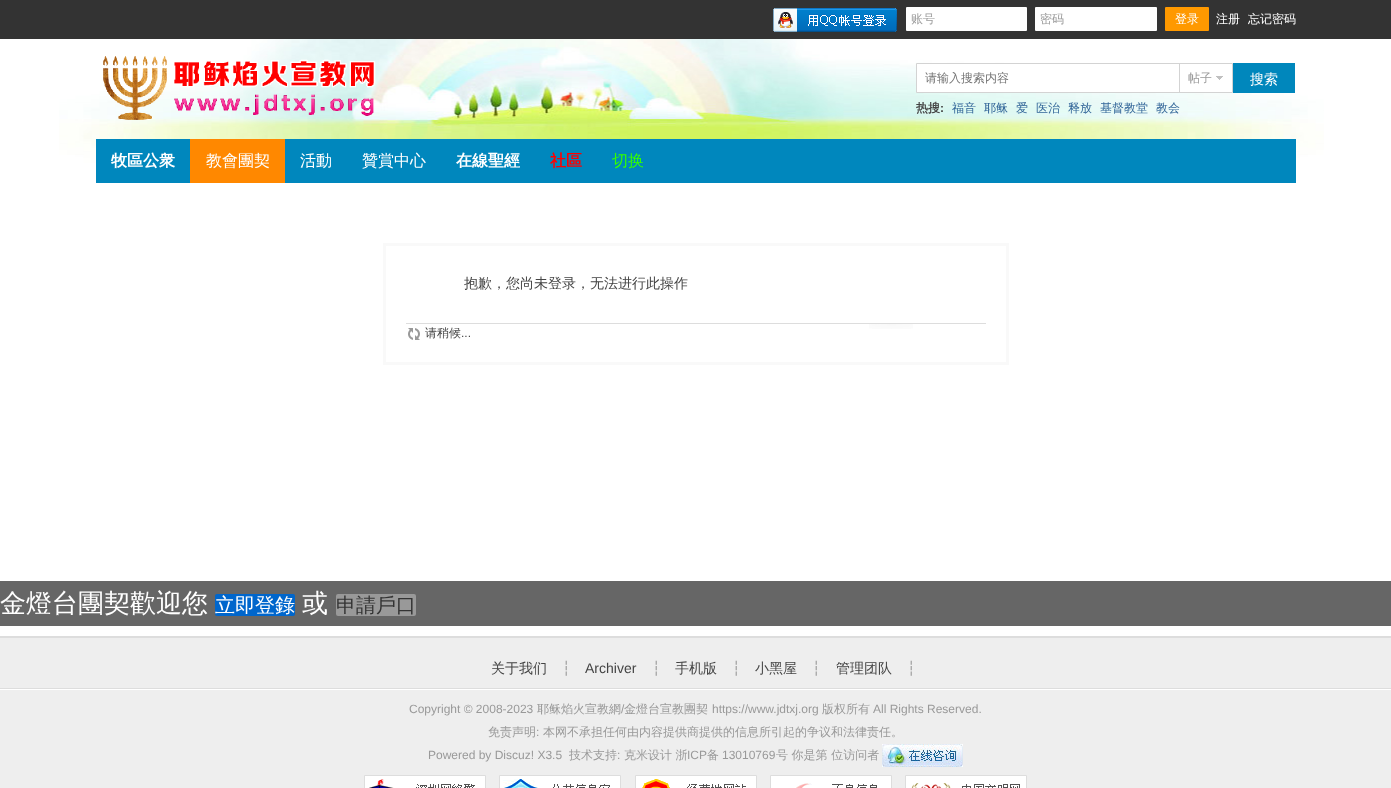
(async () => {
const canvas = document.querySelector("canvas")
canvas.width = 1391
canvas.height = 788
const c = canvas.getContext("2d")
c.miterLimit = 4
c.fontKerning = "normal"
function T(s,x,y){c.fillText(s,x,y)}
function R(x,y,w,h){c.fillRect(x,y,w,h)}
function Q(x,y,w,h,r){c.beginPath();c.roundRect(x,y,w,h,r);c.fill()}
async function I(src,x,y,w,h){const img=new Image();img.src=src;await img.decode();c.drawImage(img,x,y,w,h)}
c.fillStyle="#fff"
R(0,0,1391,788)
c.fillStyle="#333"
R(0,0,1391,39)
await I("1.png",773,8,124,24)
c.fillStyle="#fff"
Q(906,7,121,24,1)
c.font="500 12px WenQuanYi Zen Hei"
c.fillStyle="#999"
T("账号",911,23)
c.fillStyle="#fff"
Q(1035,7,122,24,1)
c.fillStyle="#999"
T("密码",1040,23)
c.fillStyle="#f90"
Q(1165,7,44,24,1)
c.fillStyle="#fff"
T("登录",1175,23)
T("注册",1216,23)
T("忘记密码",1248,23)
await I("2.png",59,39,1265,144)
await I("3.png",103,56,273,64)
c.beginPath()
c.rect(916.5,63.5,316,29)
c.fill()
c.strokeStyle="#d3d3d3"
c.stroke()
c.fillStyle="#757575"
T("请输入搜索内容",925,82)
c.fillStyle="#d3d3d3"
R(1179,64,1,29)
c.fillStyle="#999"
T("帖子",1188,82)
await I("4.png",1216,76,7,4)
c.fillStyle="#0087bc"
R(1233,63,62,30)
c.font="500 14px WenQuanYi Zen Hei"
c.fillStyle="#fff"
T("搜索",1250,84)
c.font="bold 12px WenQuanYi Zen Hei"
c.fillStyle="#444"
T("热搜",916,112)
c.font="bold 12px Liberation Sans"
T(":",940,112)
c.font="500 12px WenQuanYi Zen Hei"
c.fillStyle="#369"
T("福音",952,112)
T("耶稣",984,112)
T("爱",1016,112)
T("医治",1036,112)
T("释放",1068,112)
T("基督教堂",1100,112)
T("教会",1156,112)
c.fillStyle="#0087bd"
R(96,139,1200,44)
c.font="bold 16px WenQuanYi Zen Hei"
c.fillStyle="#fff"
T("牧區公衆",111,166)
c.fillStyle="#f80"
R(190,139,95,44)
c.font="500 16px WenQuanYi Zen Hei"
c.fillStyle="#fff"
T("教會團契",206,166)
T("活動",300,166)
T("贊賞中心",362,166)
c.font="bold 16px WenQuanYi Zen Hei"
T("在線聖經",456,166)
c.fillStyle="#f00"
T("社區",550,166)
c.font="500 16px WenQuanYi Zen Hei"
c.fillStyle="#3f0"
T("切换",612,166)
c.strokeStyle="#f9f9f9"
c.lineWidth=3
c.strokeRect(384.5,244.5,623,119)
c.font="500 14px WenQuanYi Zen Hei"
c.fillStyle="#444"
T("抱歉，您尚未登录，无法进行此操作",464,288)
await I("5.png",869,324,44,5)
c.fillStyle="#ddd"
R(406,323,580,1)
await I("6.png",408,328,12,12)
c.font="500 12px WenQuanYi Zen Hei"
c.fillStyle="#444"
T("请稍候",425,337)
c.font="12px Liberation Sans"
T("...",461,337)
c.fillStyle="#666"
R(0,581,1391,45)
c.font="500 26px WenQuanYi Zen Hei"
c.fillStyle="#fff"
T("金燈台團契歡迎您",0,612)
c.fillStyle="#06c"
Q(215,594,80,22,2)
c.font="500 20px WenQuanYi Zen Hei"
c.fillStyle="#fff"
T("立即登錄",215,612)
c.font="500 26px WenQuanYi Zen Hei"
T("或",302,612)
c.fillStyle="#999"
Q(336,594,80,22,2)
c.font="500 20px WenQuanYi Zen Hei"
c.fillStyle="#333"
T("申請戶口",336,612)
c.fillStyle="#eee"
R(0,638,1391,150)
c.fillStyle="#ddd"
R(0,636,1391,2)
R(0,688,1391,1)
c.font="500 14px WenQuanYi Zen Hei"
c.fillStyle="#444"
T("关于我们",491,673)
c.font="14px DejaVu Sans"
c.fillStyle="#999"
T("┆",562,673)
c.font="14px Liberation Sans"
c.fillStyle="#444"
T("Archiver",585,673)
c.font="14px DejaVu Sans"
c.fillStyle="#999"
T("┆",652,673)
c.font="500 14px WenQuanYi Zen Hei"
c.fillStyle="#444"
T("手机版",675,673)
c.font="14px DejaVu Sans"
c.fillStyle="#999"
T("┆",732,673)
c.font="500 14px WenQuanYi Zen Hei"
c.fillStyle="#444"
T("小黑屋",755,673)
c.font="14px DejaVu Sans"
c.fillStyle="#999"
T("┆",812,673)
c.font="500 14px WenQuanYi Zen Hei"
c.fillStyle="#444"
T("管理团队",836,673)
c.font="14px DejaVu Sans"
c.fillStyle="#999"
T("┆",907,673)
c.fillStyle="#fff"
R(0,689,1391,1)
c.font="12px Liberation Sans"
c.fillStyle="#999"
T("Copyright © 2008-2023",409,713)
c.font="500 12px WenQuanYi Zen Hei"
T("耶稣焰火宣教網",537,713)
c.font="12px Liberation Sans"
T("/",621,713)
c.font="500 12px WenQuanYi Zen Hei"
T("金燈台宣教團契",624,713)
c.font="12px Liberation Sans"
T("https://www.jdtxj.org",712,713)
c.font="500 12px WenQuanYi Zen Hei"
T("版权所有",822,713)
c.font="12px Liberation Sans"
T("All Rights Reserved.",873,713)
c.font="500 12px WenQuanYi Zen Hei"
T("免责声明",488,736)
c.font="12px Liberation Sans"
T(":",536,736)
c.font="500 12px WenQuanYi Zen Hei"
T("本网不承担任何由内容提供商提供的信息所引起的争议和法律责任。",543,736)
c.font="12px Liberation Sans"
T("Powered by Discuz! X3.5",428,759)
c.font="500 12px WenQuanYi Zen Hei"
T("技术支持",569,759)
c.font="12px Liberation Sans"
T(":",617,759)
c.font="500 12px WenQuanYi Zen Hei"
T("克米设计 浙",624,759)
c.font="12px Liberation Sans"
T("ICP",687,759)
c.font="500 12px WenQuanYi Zen Hei"
T("备",707,759)
c.font="12px Liberation Sans"
T("13010769",722,759)
c.font="500 12px WenQuanYi Zen Hei"
T("号 你是第 位访问者",776,759)
await I("7.png",882,744,81,23)
c.fillStyle="#fff"
c.beginPath()
c.rect(364.5,775.5,121,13)
c.fill()
c.strokeStyle="#ddd"
c.lineWidth=1
c.stroke()
c.beginPath()
c.rect(499.5,775.5,121,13)
c.fill()
c.stroke()
c.beginPath()
c.rect(635.5,775.5,121,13)
c.fill()
c.stroke()
c.beginPath()
c.rect(770.5,775.5,121,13)
c.fill()
c.stroke()
c.beginPath()
c.rect(905.5,775.5,121,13)
c.fill()
c.stroke()
await I("8.png",369,779,106,9)
await I("9.png",503,779,107,9)
await I("10.png",642,779,104,9)
await I("11.png",796,783,81,5)
await I("12.png",911,783,109,5)
})()
